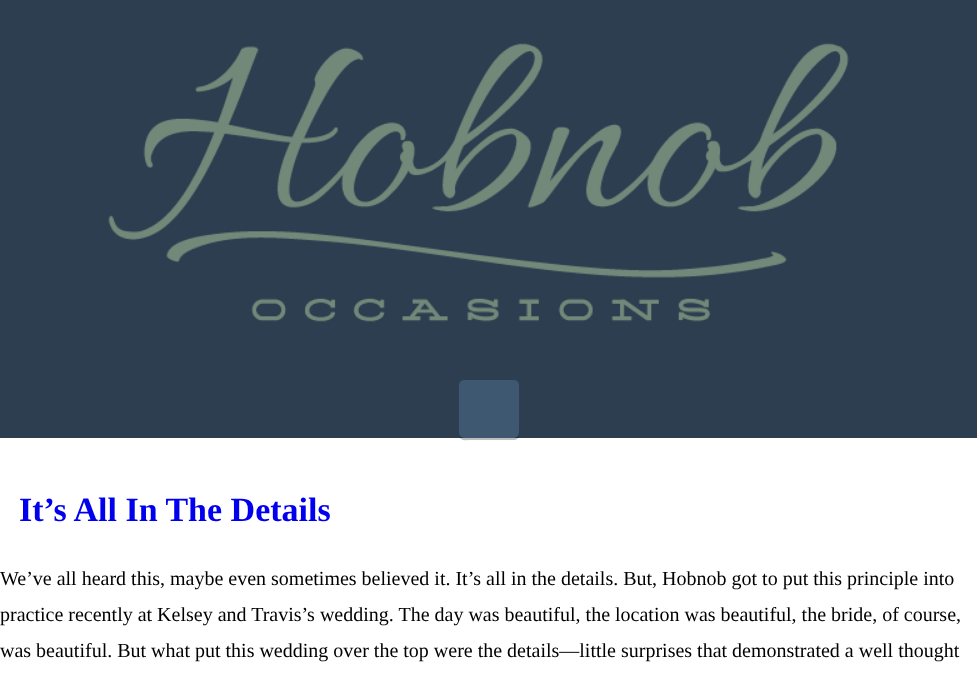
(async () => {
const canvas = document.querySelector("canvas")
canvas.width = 977
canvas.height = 684
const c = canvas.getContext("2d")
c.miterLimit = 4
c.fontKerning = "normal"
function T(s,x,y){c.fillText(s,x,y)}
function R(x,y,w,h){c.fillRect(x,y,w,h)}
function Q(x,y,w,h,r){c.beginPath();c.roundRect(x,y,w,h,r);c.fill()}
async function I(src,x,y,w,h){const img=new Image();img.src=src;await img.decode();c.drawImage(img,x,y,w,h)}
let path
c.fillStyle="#fff"
R(0,0,977,684)
c.fillStyle="#2c3e50"
R(0,0,977,438)
await I("1.png",108,43,741,279)
c.fillStyle="#00000040"
path = new Path2D("M459 434c0 8 8 6 13 6h43c6-1 4-9 4-13v-41v46c0 3-2 6-5 6h-50c-2 0-4-2-5-4z")
c.fill(path)
c.fillStyle="#3e5871"
Q(459,380,60,58,5)
c.font="bold 34px Liberation Serif"
c.fillStyle="#00e"
T("It’s All In The Details",19,521)
c.font="20px Liberation Serif"
c.fillStyle="#000"
T("We’ve all heard this, maybe even sometimes believed it. It’s all in the details. But, Hobnob got to put this principle into",0,585)
T("practice recently at Kelsey and Travis’s wedding. The day was beautiful, the location was beautiful, the bride, of course,",0,621)
T("was beautiful. But what put this wedding over the top were the details—little surprises that demonstrated a well thought",0,657)
})()
